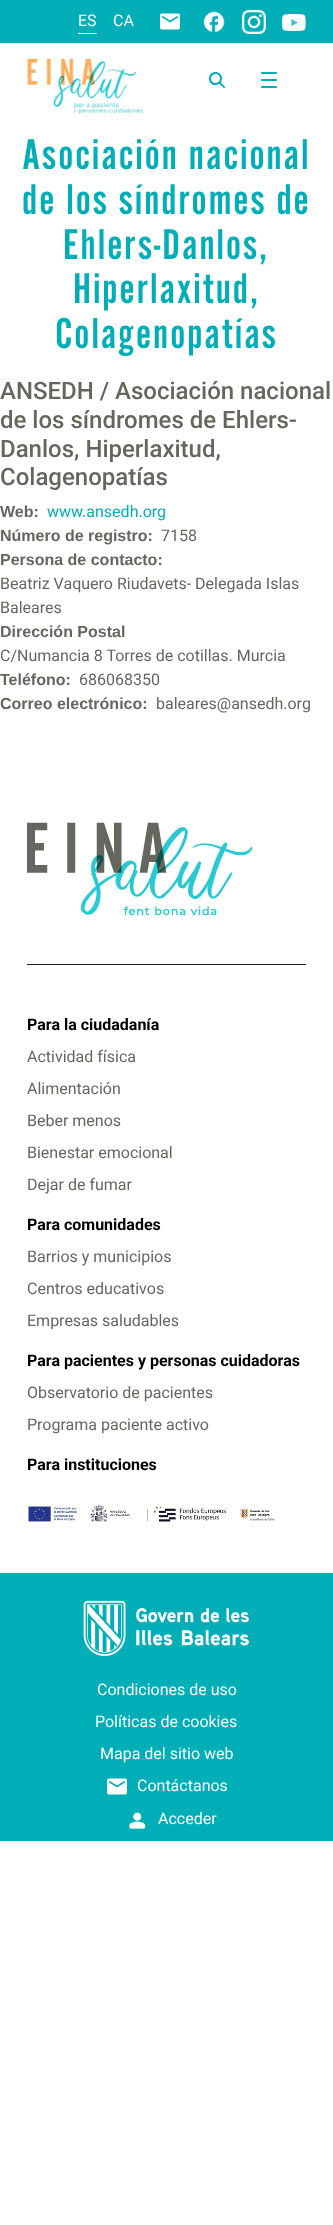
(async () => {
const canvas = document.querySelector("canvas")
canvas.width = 333
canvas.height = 2225
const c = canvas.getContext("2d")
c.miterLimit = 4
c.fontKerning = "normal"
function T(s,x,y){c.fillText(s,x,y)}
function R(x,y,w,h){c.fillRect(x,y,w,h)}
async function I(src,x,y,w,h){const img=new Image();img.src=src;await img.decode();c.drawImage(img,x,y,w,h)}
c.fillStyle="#fff"
R(0,0,333,2225)
c.fillStyle="#00aeb8"
R(0,0,333,43)
c.fillStyle="#fff"
R(78,33,19,1)
c.font="16px Roboto"
T("ES",78,26)
T("CA",113,26)
await I("1.png",160,13,20,17)
await I("2.png",203,11,22,22)
await I("3.png",242,10,24,24)
await I("4.png",282,14,24,17)
await I("5.png",27,58,116,56)
await I("6.png",209,72,16,16)
await I("7.png",261,72,16,16)
c.letterSpacing="2px"
c.font="44.75px 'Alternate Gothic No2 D'"
c.fillStyle="#00aeb8"
T("Asociación nacional",22,169)
T("de los síndromes de",22,214)
T("Ehlers-Danlos,",63,259)
T("Hiperlaxitud,",73,303)
T("Colagenopatías",55,348)
c.letterSpacing="0px"
c.font="500 24px Roboto"
c.fillStyle="#65665e"
T("ANSEDH / Asociación nacional",0,399)
T("de los síndromes de Ehlers-",0,428)
T("Danlos, Hiperlaxitud,",0,457)
T("Colagenopatías",0,485)
c.font="bold 16px Liberation Sans"
T("Web:",0,517)
c.font="16px Roboto"
c.fillStyle="#00aeb8"
T("www.ansedh.org",47,517)
c.font="bold 16px Liberation Sans"
c.fillStyle="#65665e"
T("Número de registro:",0,541)
c.font="16px Roboto"
T("7158",161,541)
c.font="bold 16px Liberation Sans"
T("Persona de contacto:",0,565)
c.font="16px Roboto"
T("Beatriz Vaquero Riudavets- Delegada Islas",0,589)
T("Baleares",0,613)
c.font="bold 16px Liberation Sans"
T("Dirección Postal",0,637)
c.font="16px Roboto"
T("C/Numancia 8 Torres de cotillas. Murcia",0,661)
c.font="bold 16px Liberation Sans"
T("Teléfono:",0,685)
c.font="16px Roboto"
T("686068350",79,685)
c.font="bold 16px Liberation Sans"
T("Correo electrónico:",0,709)
c.font="16px Roboto"
T("baleares@ansedh.org",156,709)
c.fillStyle="#212529"
R(27,964,279,1)
await I("8.png",27,822,226,94)
c.font="bold 16px Roboto"
c.fillStyle="#000"
T("Para la ciudadanía",27,1030)
c.font="16px Roboto"
c.fillStyle="#65665e"
T("Actividad física",27,1062)
T("Alimentación",27,1094)
T("Beber menos",27,1126)
T("Bienestar emocional",27,1158)
T("Dejar de fumar",27,1190)
c.font="bold 16px Roboto"
c.fillStyle="#000"
T("Para comunidades",27,1230)
c.font="16px Roboto"
c.fillStyle="#65665e"
T("Barrios y municipios",27,1262)
T("Centros educativos",27,1294)
T("Empresas saludables",27,1326)
c.font="bold 16px Roboto"
c.fillStyle="#000"
T("Para pacientes y personas cuidadoras",27,1366)
c.font="16px Roboto"
c.fillStyle="#65665e"
T("Observatorio de pacientes",27,1398)
T("Programa paciente activo",27,1430)
c.font="bold 16px Roboto"
c.fillStyle="#000"
T("Para instituciones",27,1470)
await I("9.png",28,1504,247,18)
c.fillStyle="#00aeb8"
R(0,1573,333,268)
await I("10.png",83,1600,166,56)
c.font="16px Roboto"
c.fillStyle="#fff"
T("Condiciones de uso",97,1695)
T("Políticas de cookies",95,1727)
T("Mapa del sitio web",100,1759)
await I("1.png",107,1778,20,17)
T("Contáctanos",137,1791)
await I("11.png",129,1812,17,17)
T("Acceder",158,1824)
})()
